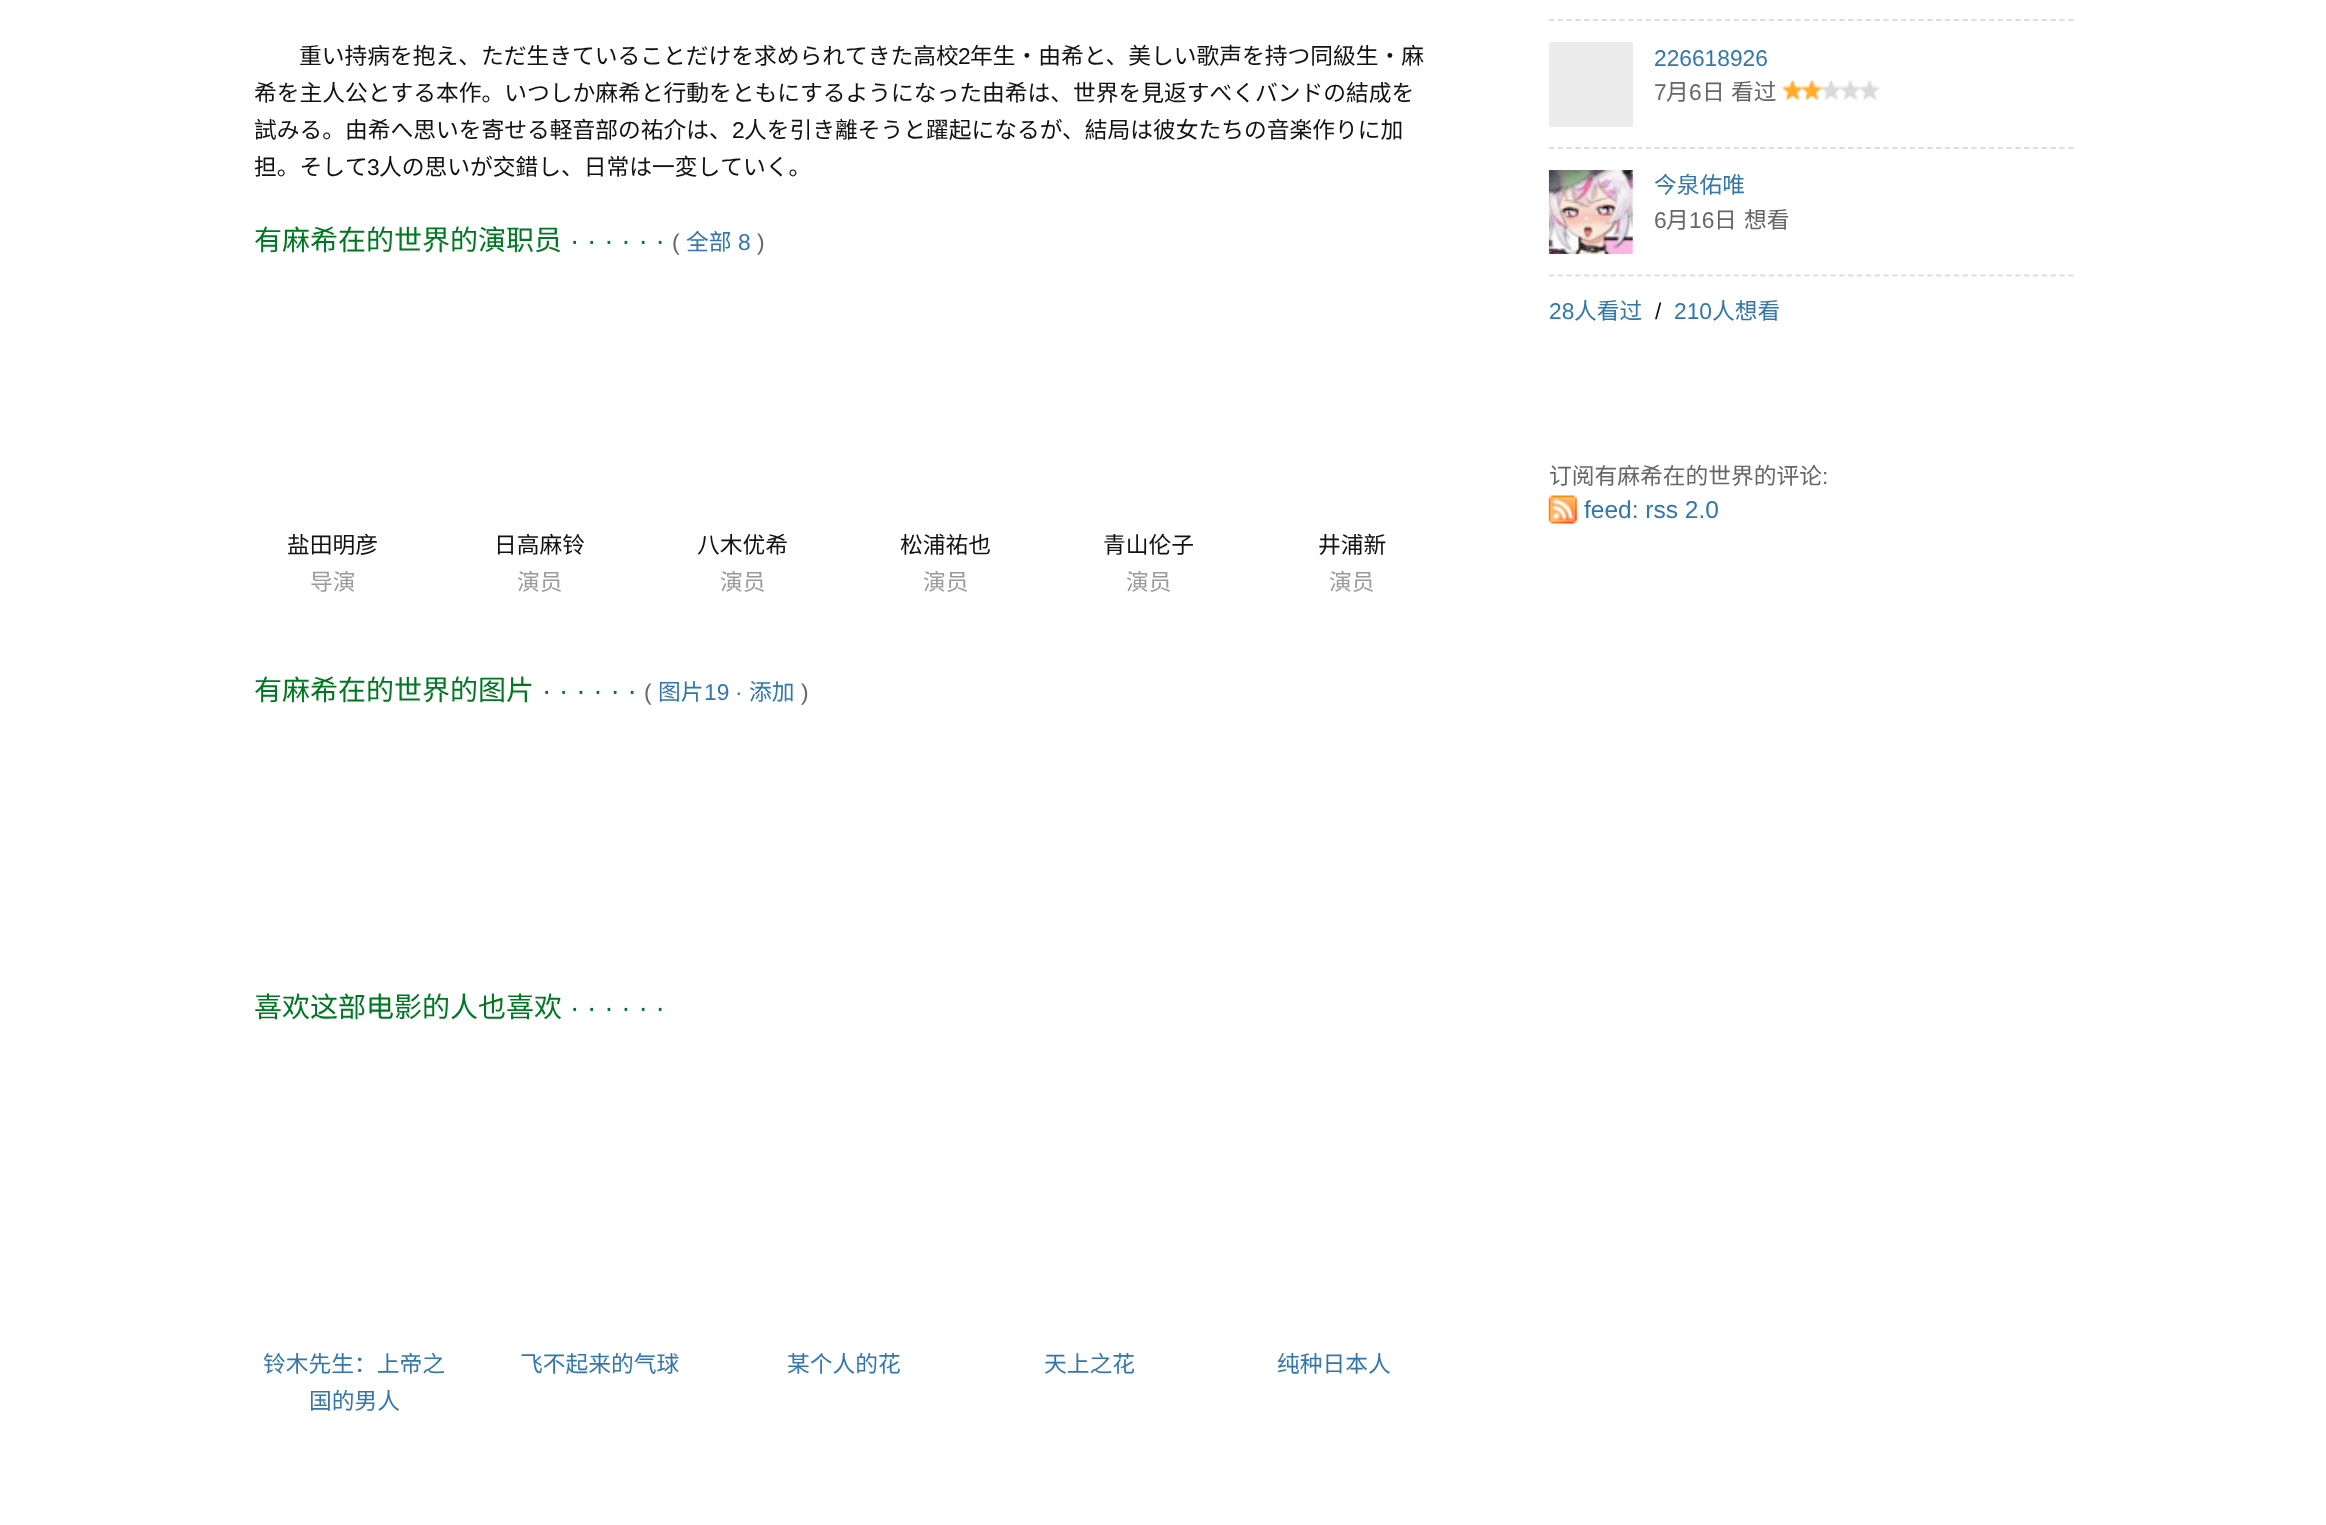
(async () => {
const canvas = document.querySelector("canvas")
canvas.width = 2326
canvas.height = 1525
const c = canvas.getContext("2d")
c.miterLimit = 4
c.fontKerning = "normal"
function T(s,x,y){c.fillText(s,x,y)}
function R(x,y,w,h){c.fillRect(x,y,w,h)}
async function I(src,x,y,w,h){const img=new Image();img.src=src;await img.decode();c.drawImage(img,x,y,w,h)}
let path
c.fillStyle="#fff"
R(0,0,2326,1525)
c.font="22.75px Noto Sans CJK SC"
c.fillStyle="#111"
T("重い持病を抱え、ただ生きていることだけを求められてきた高校",299,64)
c.font="22.75px Liberation Sans"
T("2",958,64)
c.font="22.75px Noto Sans CJK SC"
T("年生・由希と、美しい歌声を持つ同級生・麻",970,64)
T("希を主人公とする本作。いつしか麻希と行動をともにするようになった由希は、世界を見返すべくバンドの結成を",254,101)
T("試みる。由希へ思いを寄せる軽音部の祐介は、",254,138)
c.font="22.75px Liberation Sans"
T("2",732,138)
c.font="22.75px Noto Sans CJK SC"
T("人を引き離そうと躍起になるが、結局は彼女たちの音楽作りに加",744,138)
T("担。そして",254,175)
c.font="22.75px Liberation Sans"
T("3",367,175)
c.font="22.75px Noto Sans CJK SC"
T("人の思いが交錯し、日常は一変していく。",379,175)
c.font="28px Noto Sans CJK SC"
c.fillStyle="#072"
T("有麻希在的世界的演职员",254,250)
c.font="28px Liberation Sans"
T("· · · · · ·",570,250)
c.font="22.75px Liberation Sans"
c.fillStyle="#666"
T("(",672,250)
c.font="22.75px Noto Sans CJK SC"
c.fillStyle="#37a"
T("全部",686,250)
c.font="22.75px Liberation Sans"
T("8",738,250)
c.fillStyle="#666"
T(")",757,250)
c.font="22.75px Noto Sans CJK SC"
c.fillStyle="#111"
T("盐田明彦",287,553)
c.fillStyle="#9b9b9b"
T("导演",310,590)
c.fillStyle="#111"
T("日高麻铃",494,553)
c.fillStyle="#9b9b9b"
T("演员",517,590)
c.fillStyle="#111"
T("八木优希",697,553)
c.fillStyle="#9b9b9b"
T("演员",720,590)
c.fillStyle="#111"
T("松浦祐也",900,553)
c.fillStyle="#9b9b9b"
T("演员",923,590)
c.fillStyle="#111"
T("青山伦子",1103,553)
c.fillStyle="#9b9b9b"
T("演员",1126,590)
c.fillStyle="#111"
T("井浦新",1318,553)
c.fillStyle="#9b9b9b"
T("演员",1329,590)
c.font="28px Noto Sans CJK SC"
c.fillStyle="#072"
T("有麻希在的世界的图片",254,700)
c.font="28px Liberation Sans"
T("· · · · · ·",542,700)
c.font="22.75px Liberation Sans"
c.fillStyle="#666"
T("(",644,700)
c.font="22.75px Noto Sans CJK SC"
c.fillStyle="#37a"
T("图片",658,700)
c.font="22.75px Liberation Sans"
T("19",704,700)
c.fillStyle="#666"
T("·",735,700)
c.font="22.75px Noto Sans CJK SC"
c.fillStyle="#37a"
T("添加",749,700)
c.font="22.75px Liberation Sans"
c.fillStyle="#666"
T(")",801,700)
c.font="28px Noto Sans CJK SC"
c.fillStyle="#072"
T("喜欢这部电影的人也喜欢",254,1017)
c.font="28px Liberation Sans"
T("· · · · · ·",570,1017)
c.font="22.75px Noto Sans CJK SC"
c.fillStyle="#37a"
T("铃木先生：上帝之",263,1372)
T("国的男人",309,1409)
T("飞不起来的气球",520,1372)
T("某个人的花",787,1372)
T("天上之花",1044,1372)
T("纯种日本人",1277,1372)
path = new Path2D("M1549 20h525")
c.strokeStyle="#ddd"
c.lineWidth=1.8
c.setLineDash([5.25,3.55])
c.stroke(path)
path = new Path2D("M1549 148h525")
c.stroke(path)
c.fillStyle="#ececec"
R(1549,42,84,85)
c.font="22.75px Liberation Sans"
c.fillStyle="#37a"
T("226618926",1654,66)
c.fillStyle="#666"
T("7",1654,100)
c.font="22.75px Noto Sans CJK SC"
T("月",1666,100)
c.font="22.75px Liberation Sans"
T("6",1689,100)
c.font="22.75px Noto Sans CJK SC"
T("日",1702,100)
T("看过",1731,100)
await I("1.png",1783,80,97,20)
path = new Path2D("M1549 275.5h525")
c.stroke(path)
await I("2.png",1548,170,85,84)
c.fillStyle="#37a"
T("今泉佑唯",1654,193)
c.font="22.75px Liberation Sans"
c.fillStyle="#666"
T("6",1654,228)
c.font="22.75px Noto Sans CJK SC"
T("月",1666,228)
c.font="22.75px Liberation Sans"
T("16",1689,228)
c.font="22.75px Noto Sans CJK SC"
T("日",1714,228)
T("想看",1744,228)
c.font="22.75px Liberation Sans"
c.fillStyle="#37a"
T("28",1549,319)
c.font="22.75px Noto Sans CJK SC"
T("人看过",1574,319)
c.font="22.75px Liberation Sans"
c.fillStyle="#111"
T("/",1655,319)
c.fillStyle="#37a"
T("210",1674,319)
c.font="22.75px Noto Sans CJK SC"
T("人想看",1712,319)
c.fillStyle="#666"
T("订阅有麻希在的世界的评论",1549,484)
c.font="22.75px Liberation Sans"
T(":",1822,484)
await I("3.png",1548,495,29,29)
c.font="24.5px Liberation Sans"
c.fillStyle="#37a"
T("feed: rss 2.0",1584,518)
})()
